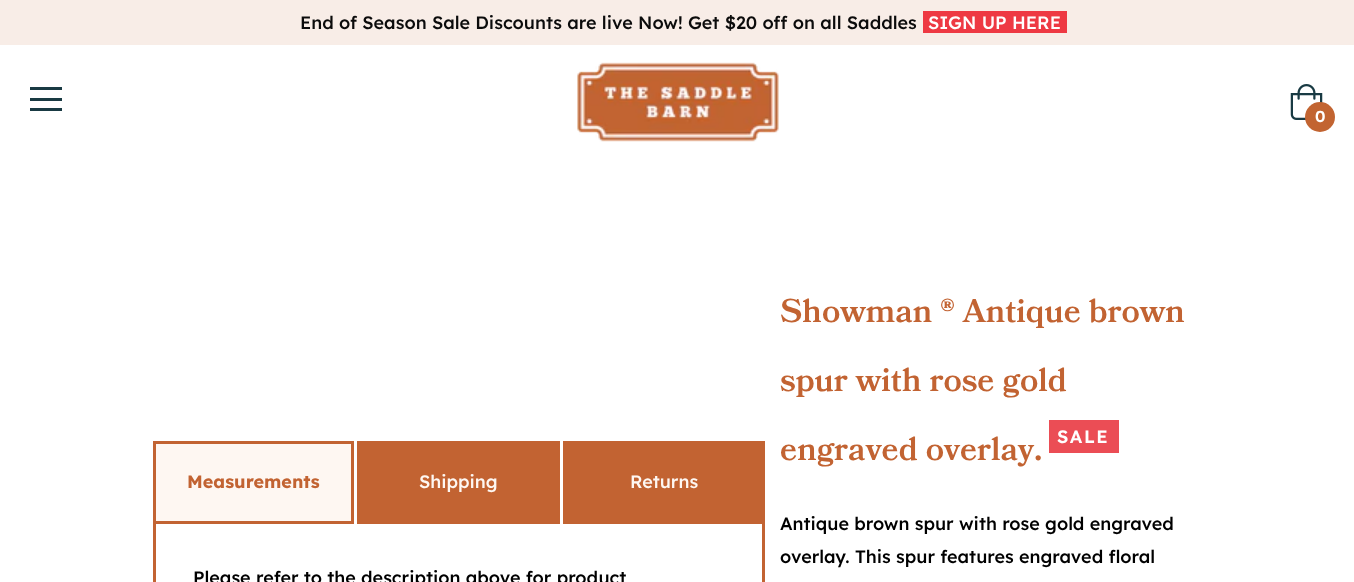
(async () => {
const canvas = document.querySelector("canvas")
canvas.width = 1354
canvas.height = 582
const c = canvas.getContext("2d")
c.miterLimit = 4
c.fontKerning = "normal"
function T(s,x,y){c.fillText(s,x,y)}
function R(x,y,w,h){c.fillRect(x,y,w,h)}
async function I(src,x,y,w,h){const img=new Image();img.src=src;await img.decode();c.drawImage(img,x,y,w,h)}
c.fillStyle="#fff"
R(0,0,1354,582)
c.fillStyle="#f8ede7"
R(0,0,1354,45)
c.font="500 18px Lexend"
c.fillStyle="#0b0b0b"
T("End of Season Sale Discounts are live Now! Get $20 off on all Saddles",300,29)
c.fillStyle="#ee3943"
R(923,11,144,22)
c.fillStyle="#fff"
T("SIGN UP HERE",928,29)
c.fillStyle="#193a43"
R(30,87,32,3)
R(30,98,32,3)
R(30,108,32,3)
await I("1.png",577,62,202,80)
await I("2.png",1290,84,33,36)
c.fillStyle="#c26431"
c.beginPath()
c.arc(1320,117,15,0,7)
c.fill()
c.font="600 16px Lexend"
c.fillStyle="#fff"
T("0",1315,122)
c.fillStyle="#fef7f2"
c.beginPath()
c.rect(154.5,442.5,198,80)
c.fill()
c.strokeStyle="#c26332"
c.lineWidth=3
c.stroke()
c.font="bold 18px Lexend"
c.fillStyle="#c26332"
T("Measurements",187,488)
R(357,441,203,83)
c.font="500 18px Lexend"
c.fillStyle="#fef7f2"
T("Shipping",419,488)
c.fillStyle="#c26332"
R(563,441,202,83)
c.fillStyle="#fef7f2"
T("Returns",630,488)
c.fillStyle="#c26332"
R(762,524,3,58)
R(153,524,3,58)
c.fillStyle="#000"
T("Please refer to the description above for product",193,584)
c.font="600 33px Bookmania"
c.fillStyle="#c26332"
T("Showman ® Antique brown",780,322)
T("spur with rose gold",780,391)
T("engraved overlay.",780,460)
c.fillStyle="#eb4d55"
R(1049,420,70,33)
c.letterSpacing="1.5px"
c.font="600 18px Lexend"
c.fillStyle="#fff"
T("SALE",1057,443)
c.letterSpacing="0px"
c.font="500 18px Lexend"
c.fillStyle="#000"
T("Antique brown spur with rose gold engraved",780,530)
T("overlay. This spur features engraved floral",780,563)
})()
